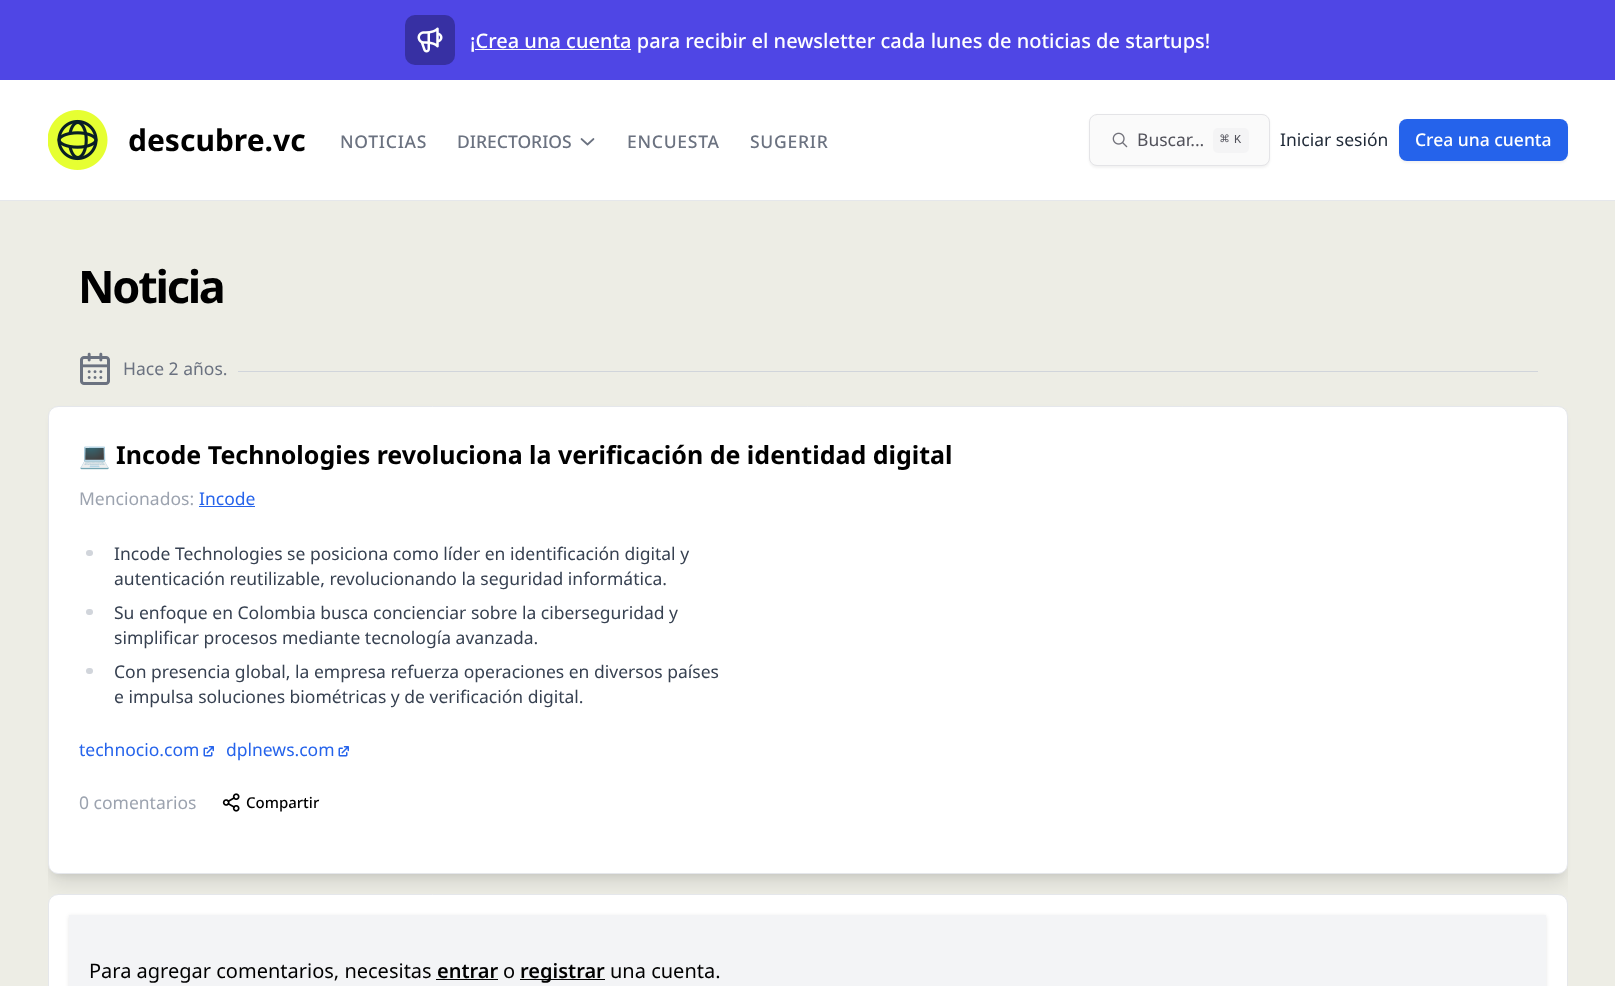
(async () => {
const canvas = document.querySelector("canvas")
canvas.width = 1615
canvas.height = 986
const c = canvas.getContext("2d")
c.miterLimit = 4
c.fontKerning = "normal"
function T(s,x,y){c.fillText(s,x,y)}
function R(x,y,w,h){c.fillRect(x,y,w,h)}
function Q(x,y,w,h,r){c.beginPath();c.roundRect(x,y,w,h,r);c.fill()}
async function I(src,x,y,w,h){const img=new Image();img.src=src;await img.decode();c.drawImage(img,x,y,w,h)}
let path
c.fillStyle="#fff"
R(0,0,1615,986)
c.fillStyle="#4f46e5"
R(0,0,1615,80)
c.fillStyle="#3730a3"
Q(405,15,50,50,10)
await I("1.png",417,27,26,26)
c.font="500 20px Noto Sans"
c.fillStyle="#fff"
T("¡Crea una cuenta para recibir el newsletter cada lunes de noticias de startups!",470,48)
R(475,49,156,1)
c.fillStyle="#e5e7eb"
R(0,200,1615,1)
await I("2.png",48,110,60,60)
c.font="bold 30px Noto Sans"
c.fillStyle="#000"
T("descubre.vc",128,151)
c.letterSpacing="0.75px"
c.font="500 17.5px Noto Sans"
c.fillStyle="#6b7280"
T("NOTICIAS",340,148)
c.letterSpacing="0px"
T("DIRECTORIOS",457,148)
path = new Path2D("M593.5 139l-6 5.5l-6-5.5")
c.strokeStyle="#6b7280"
c.lineWidth=1.7
c.lineCap="round"
c.lineJoin="round"
c.stroke(path)
c.letterSpacing="0.75px"
T("ENCUESTA",627,148)
T("SUGERIR",750,148)
c.fillStyle="#0000000d"
c.filter="blur(1px)"
c.beginPath()
c.roundRect(1089,115,181,53,8)
c.fill()
c.filter="none"
c.fillStyle="#fafafa"
c.beginPath()
c.roundRect(1089.5,114.5,180,51,7.5)
c.fill()
c.strokeStyle="#e4e4e7"
c.lineWidth=1
c.lineJoin="miter"
c.stroke()
await I("3.png",1112,132,16,16)
c.letterSpacing="0px"
c.font="17.5px Noto Sans"
c.fillStyle="#52525b"
T("Buscar...",1137,146)
c.fillStyle="#f4f4f5"
Q(1213,128,36,25,5)
c.font="15px DejaVu Sans Mono"
c.fillStyle="#52525b"
T("⌘",1220,144)
c.font="12px Liberation Mono"
T("K",1234,143)
c.font="17.5px Noto Sans"
c.fillStyle="#1f2937"
T("Iniciar sesión",1280,146)
c.fillStyle="#0000000d"
c.filter="blur(1px)"
c.beginPath()
c.roundRect(1399,120,169,43,8)
c.fill()
c.filter="none"
c.fillStyle="#2563eb"
Q(1399,119,169,42,8)
c.font="500 17.5px Noto Sans"
c.fillStyle="#fff"
T("Crea una cuenta",1415,146)
c.fillStyle="#edede5"
R(0,201,1615,785)
c.letterSpacing="-2.25px"
c.font="bold 45px Noto Sans"
c.fillStyle="#000"
T("Noticia",78,303)
await I("4.png",80,352,30,33)
c.letterSpacing="0px"
c.font="17.5px Noto Sans"
c.fillStyle="#6b7280"
T("Hace 2 años.",123,375)
c.fillStyle="#d1d5db"
R(238,371,1300,1)
c.fillStyle="#0000001a"
c.filter="blur(4px)"
c.beginPath()
c.roundRect(53,416,1510,458,5)
c.fill()
c.filter="none"
c.save()
c.beginPath()
c.rect(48,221,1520,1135)
c.clip()
c.filter="blur(9.5px)"
c.beginPath()
c.roundRect(51,423,1513,460,6)
c.fill()
c.filter="none"
c.restore()
c.fillStyle="#fff"
c.beginPath()
c.roundRect(48.5,406.5,1519,467,9.5)
c.fill()
c.strokeStyle="#e5e7eb"
c.stroke()
c.font="bold 25px Noto Color Emoji"
c.fillStyle="#000"
T("💻",79,464)
c.font="bold 25px Noto Sans"
T("Incode Technologies revoluciona la verificación de identidad digital",116,464)
c.font="17.5px Noto Sans"
c.fillStyle="#9ca3af"
T("Mencionados:",79,505)
c.fillStyle="#2563eb"
T("Incode",199,505)
R(199,506,56,1)
c.fillStyle="#d1d5db"
Q(86,550,7,6,3)
c.fillStyle="#374151"
T("Incode Technologies se posiciona como líder en identificación digital y",114,560)
T("autenticación reutilizable, revolucionando la seguridad informática.",114,585)
c.fillStyle="#d1d5db"
Q(86,609,7,6,3)
c.fillStyle="#374151"
T("Su enfoque en Colombia busca concienciar sobre la ciberseguridad y",114,619)
T("simplificar procesos mediante tecnología avanzada.",114,644)
c.fillStyle="#d1d5db"
Q(86,668,7,6,3)
c.fillStyle="#374151"
T("Con presencia global, la empresa refuerza operaciones en diversos países",114,678)
T("e impulsa soluciones biométricas y de verificación digital.",114,703)
c.fillStyle="#2563eb"
T("technocio.com",79,756)
await I("5.png",203,746,11,11)
T("dplnews.com",226,756)
await I("5.png",338,746,11,11)
c.fillStyle="#9ca3af"
T("0 comentarios",79,809)
await I("6.png",222,793,18,19)
c.font="500 15px Noto Sans"
c.fillStyle="#000"
T("Compartir",246,808)
c.fillStyle="#fff"
c.beginPath()
c.roundRect(48.5,894.5,1519,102,9.5)
c.fill()
c.stroke()
c.fillStyle="#0000001a"
c.filter="blur(2px)"
c.beginPath()
c.rect(69,916,1477,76)
c.fill()
c.filter="none"
c.fillStyle="#f3f4f6"
R(69,915,1477,71)
c.font="20px Noto Sans"
c.fillStyle="#000"
T("Para agregar comentarios, necesitas",89,978)
c.font="600 20px Noto Sans"
T("entrar",437,978)
R(436,979,62,1)
c.font="20px Noto Sans"
T("o",503,978)
R(520,979,85,1)
c.font="600 20px Noto Sans"
T("registrar",520,978)
c.font="20px Noto Sans"
T("una cuenta.",610,978)
})()
